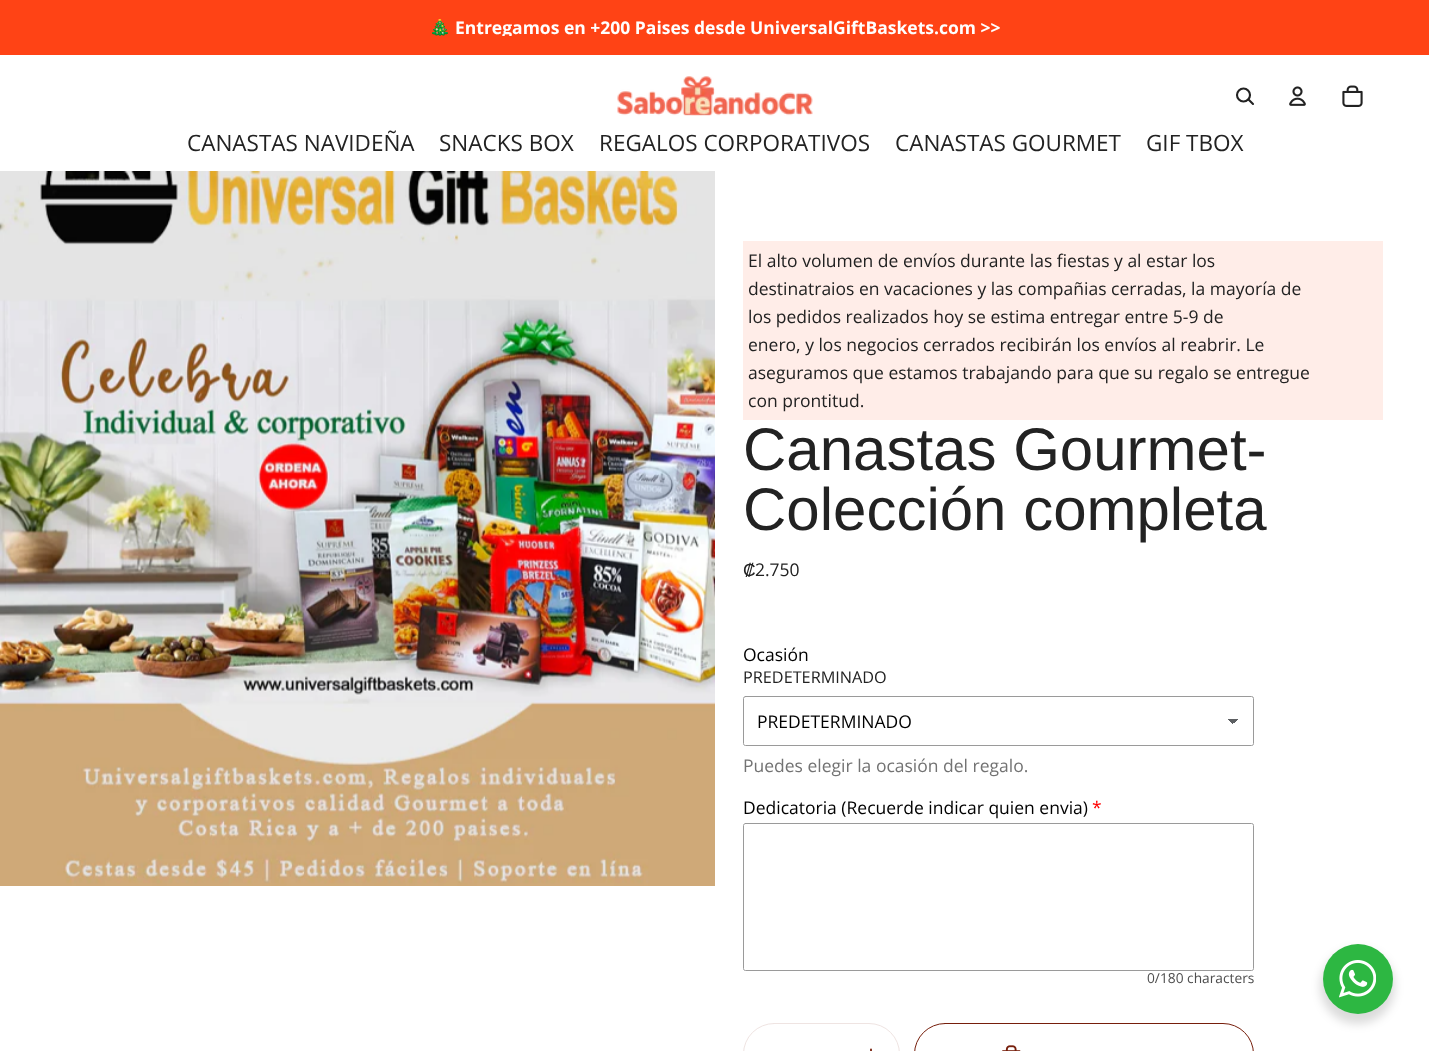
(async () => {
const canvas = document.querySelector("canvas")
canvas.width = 1429
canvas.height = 1051
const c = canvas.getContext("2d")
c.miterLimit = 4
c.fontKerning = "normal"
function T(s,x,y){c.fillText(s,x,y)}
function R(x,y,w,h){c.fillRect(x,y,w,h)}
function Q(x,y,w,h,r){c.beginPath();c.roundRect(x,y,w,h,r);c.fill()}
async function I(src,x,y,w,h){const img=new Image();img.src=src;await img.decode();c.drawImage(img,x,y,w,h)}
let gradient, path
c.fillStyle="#fff"
R(0,0,1429,1051)
c.fillStyle="#ff4315"
R(0,0,1429,55)
c.save()
c.beginPath()
c.rect(290,19,850,17)
c.clip()
c.font="17.5px Noto Color Emoji"
c.fillStyle="#fff"
T("🎄",429,34)
c.font="bold 17.5px Open Sans"
T("Entregamos en +200 Paises desde UniversalGiftBaskets.com >>",455,34)
c.restore()
await I("1.png",617,76,196,40)
c.beginPath()
c.arc(1243.5,95,6.5,0,7)
c.strokeStyle="#222"
c.lineWidth=2.1
c.stroke()
path = new Path2D("M1248.5 99.5l4.5 4.5")
c.lineCap="round"
c.lineJoin="round"
c.stroke(path)
await I("2.png",1289,86,17,20)
await I("3.png",1342,85,21,22)
c.font="22.5px Open Sans"
c.fillStyle="#222"
T("CANASTAS NAVIDEÑA",187,151)
T("SNACKS BOX",439,151)
T("REGALOS CORPORATIVOS",599,151)
T("CANASTAS GOURMET",895,151)
T("GIF TBOX",1146,151)
await I("4.png",0,171,715,715)
c.fillStyle="#ffede8"
R(743,241,640,179)
c.font="17.5px Open Sans"
c.fillStyle="#222"
T("El alto volumen de envíos durante las fiestas y al estar los",748,267)
T("destinatraios en vacaciones y las compañias cerradas, la mayoría de",748,295)
T("los pedidos realizados hoy se estima entregar entre 5-9 de",748,323)
T("enero, y los negocios cerrados recibirán los envíos al reabrir. Le",748,351)
T("aseguramos que estamos trabajando para que su regalo se entregue",748,379)
T("con prontitud.",748,407)
c.font="60px Liberation Sans"
T("Canastas Gourmet-",743,470)
T("Colección completa",743,530)
c.font="17.5px Liberation Sans"
T("₡",743,576)
c.font="17.5px Open Sans"
T("2.750",755,576)
c.fillStyle="#000"
T("Ocasión",743,661)
c.font="16.25px Open Sans"
c.fillStyle="#222"
T("PREDETERMINADO",743,683)
c.beginPath()
c.roundRect(743.5,696.5,510,49,2)
c.strokeStyle="#9a9a9a"
c.lineWidth=1
c.lineJoin="miter"
c.stroke()
c.fillStyle="#fff"
Q(744,698,509,47,2.5)
gradient = c.createLinearGradient(1233,718,1239,724)
gradient.addColorStop(.5,"#5c5f62")
gradient.addColorStop(.5,"#fff")
c.fillStyle = gradient
R(1233,719,6,4)
gradient = c.createLinearGradient(1226,724,1233,718)
gradient.addColorStop(.5,"#fff")
gradient.addColorStop(.5,"#5c5f62")
c.fillStyle = gradient
R(1226,719,7,5)
c.font="17.5px Open Sans"
c.fillStyle="#000"
T("PREDETERMINADO",757,728)
c.fillStyle="#737373"
T("Puedes elegir la ocasión del regalo.",743,772)
c.fillStyle="#000"
T("Dedicatoria (Recuerde indicar quien envia)",743,814)
c.fillStyle="#f00"
T("*",1092,814)
c.beginPath()
c.roundRect(743.5,823.5,510,147,2)
c.stroke()
c.fillStyle="#fff"
Q(744,824,509,146,2.5)
c.font="13.75px Open Sans"
c.fillStyle="#4e4e4e"
T("0/180 characters",1147,983)
c.beginPath()
c.roundRect(743.5,1023.5,156,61,32)
c.strokeStyle="#efe4e2"
c.stroke()
path = new Path2D("M871 1049.5v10.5")
c.strokeStyle="#761e0b"
c.lineWidth=1.8
c.stroke(path)
c.beginPath()
c.roundRect(914.5,1023.5,339,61,32)
c.lineWidth=1
c.stroke()
await I("5.png",1002,1045,19,6)
c.fillStyle="#00000024"
c.filter="blur(5px)"
c.beginPath()
c.roundRect(1320,949,75,75,37.5)
c.fill()
c.filter="none"
c.fillStyle="#2db742"
c.beginPath()
c.arc(1358,979,35,0,7)
c.fill()
await I("6.png",1339,960,37,38)
})()
